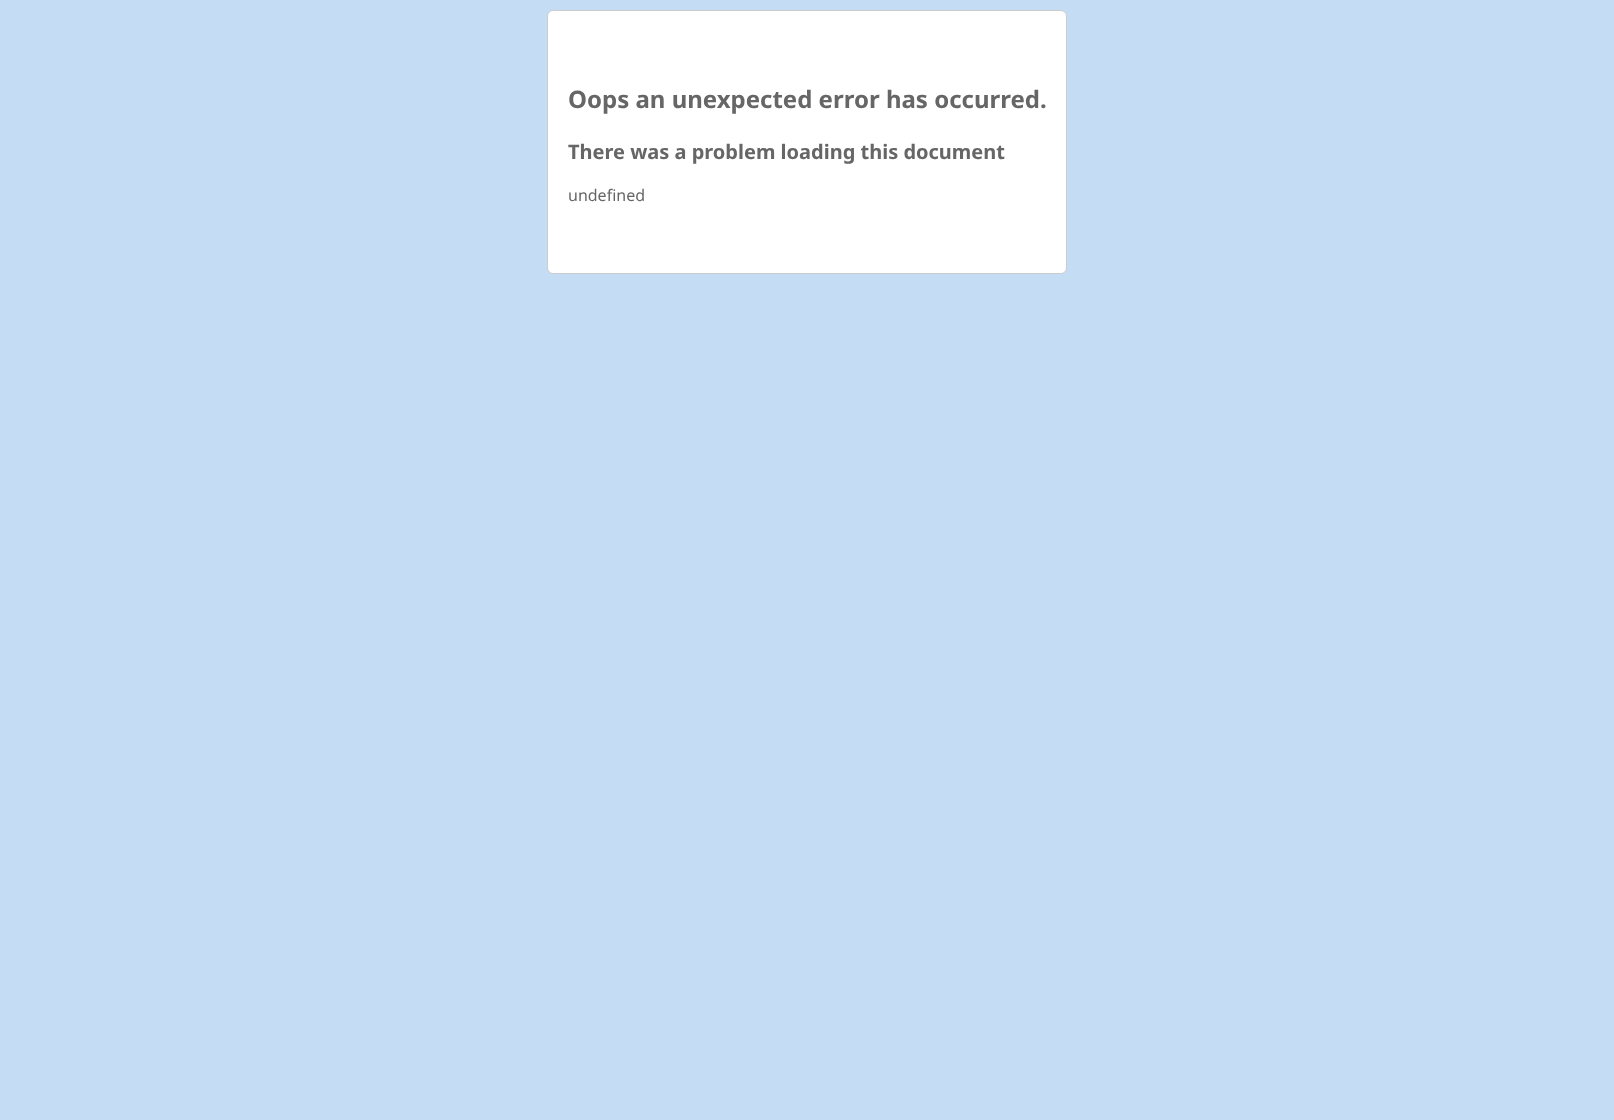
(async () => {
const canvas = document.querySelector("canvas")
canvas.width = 1614
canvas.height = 1120
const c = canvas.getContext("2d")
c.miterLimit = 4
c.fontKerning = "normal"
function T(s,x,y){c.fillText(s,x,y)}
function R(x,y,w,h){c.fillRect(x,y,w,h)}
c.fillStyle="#c4dcf4"
R(0,0,1614,1120)
c.fillStyle="#fff"
c.beginPath()
c.roundRect(547.5,10.5,519,263,5.5)
c.fill()
c.strokeStyle="#ccc"
c.stroke()
c.font="bold 24px Noto Sans"
c.fillStyle="#666"
T("Oops an unexpected error has occurred.",568,108)
c.font="bold 20px Noto Sans"
T("There was a problem loading this document",568,159)
c.font="16px Noto Sans"
T("undefined",568,201)
})()
